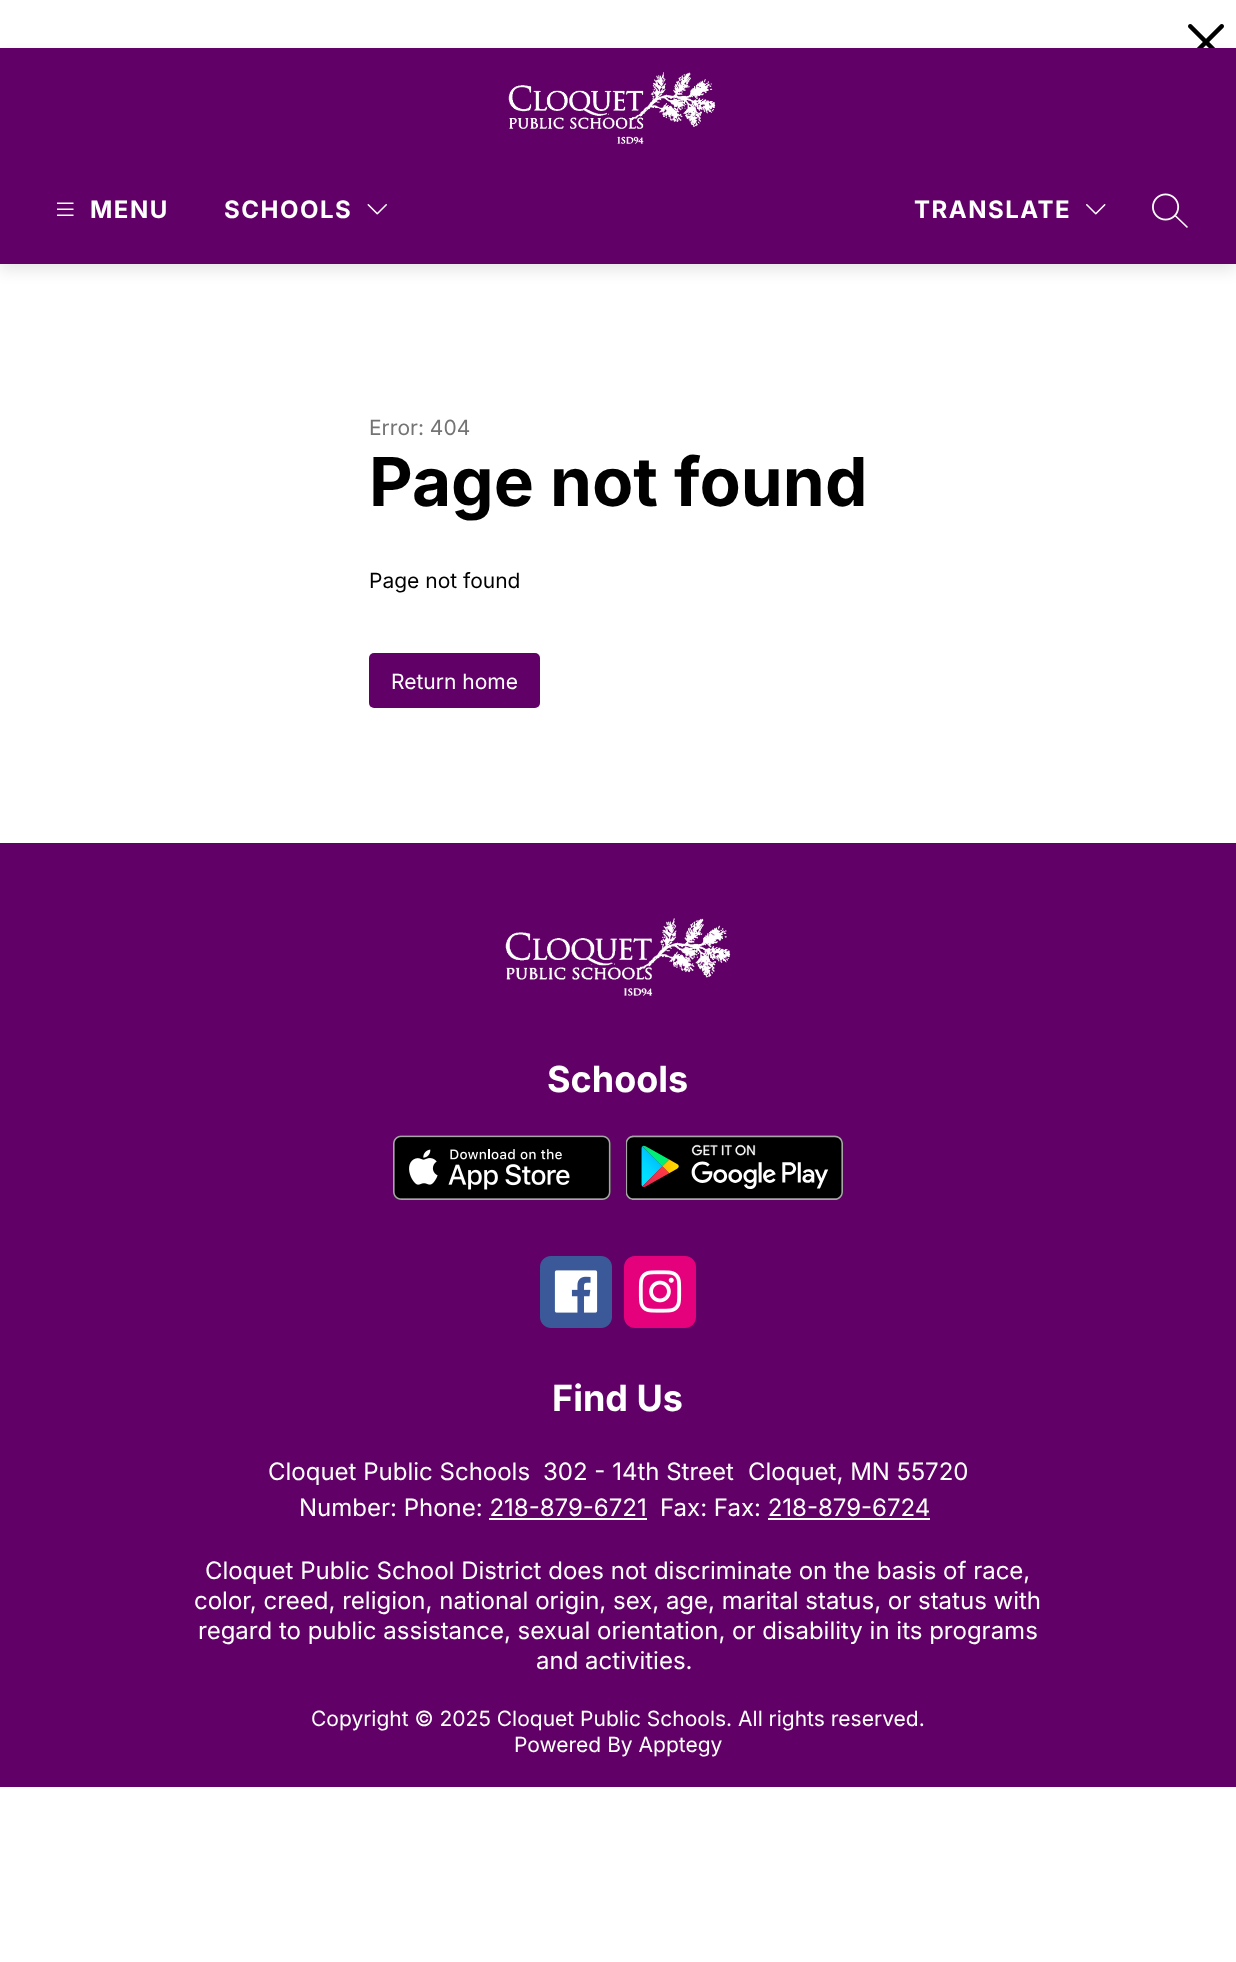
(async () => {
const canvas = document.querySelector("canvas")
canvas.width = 1236
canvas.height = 1962
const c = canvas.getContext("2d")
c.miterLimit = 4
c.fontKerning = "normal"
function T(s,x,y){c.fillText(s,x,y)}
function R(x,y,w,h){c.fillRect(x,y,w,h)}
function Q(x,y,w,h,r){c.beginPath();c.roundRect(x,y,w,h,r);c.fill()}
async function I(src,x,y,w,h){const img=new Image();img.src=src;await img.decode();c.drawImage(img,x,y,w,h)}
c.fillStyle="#fff"
R(0,0,1236,1962)
await I("1.png",1188,24,36,24)
c.fillStyle="#0000001a"
c.filter="blur(7.5px)"
c.beginPath()
c.rect(0,54,1236,216)
c.fill()
c.filter="none"
c.fillStyle="#610066"
R(0,48,1236,216)
await I("2.png",508,72,208,72)
await I("3.png",57,202,17,14)
c.letterSpacing="1.5px"
c.font="bold 24px Inter"
c.fillStyle="#fff"
T("MENU",90,218)
T("SCHOOLS",224,218)
await I("4.png",367,204,20,11)
T("TRANSLATE",914,218)
await I("5.png",1086,204,20,11)
await I("6.png",1152,193,36,35)
c.letterSpacing="0px"
c.font="21px Inter"
c.fillStyle="#747474"
T("Error: 404",369,435)
c.font="bold 67.5px Inter"
c.fillStyle="#000"
T("Page not found",369,506)
c.font="21px Inter"
T("Page not found",369,588)
c.fillStyle="#610066"
Q(369,653,171,55,5)
c.fillStyle="#fff"
T("Return home",391,689)
c.fillStyle="#610066"
R(0,843,1236,944)
await I("7.png",505,918,226,78)
c.font="bold 36px Inter"
c.fillStyle="#fff"
T("Schools",547,1092)
await I("8.png",393,1135,218,65)
await I("9.png",626,1135,217,65)
await I("10.png",540,1256,72,72)
await I("11.png",624,1256,72,72)
T("Find Us",552,1411)
c.font="24px Inter"
T("Cloquet Public Schools",268,1480)
T("302 - 14th Street",543,1480)
T("Cloquet, MN 55720",748,1480)
T("Number: Phone: 218-879-6721",299,1516)
R(489,1518,158,2)
T("Fax: Fax: 218-879-6724",660,1516)
R(768,1518,162,2)
T("Cloquet Public School District does not discriminate on the basis of race,",205,1579)
T("color, creed, religion, national origin, sex, age, marital status, or status with",194,1609)
T("regard to public assistance, sexual orientation, or disability in its programs",198,1639)
T("and activities.",536,1669)
c.font="21px Inter"
T("Copyright © 2025 Cloquet Public Schools. All rights reserved.",311,1726)
T("Powered By Apptegy",514,1752)
})()
